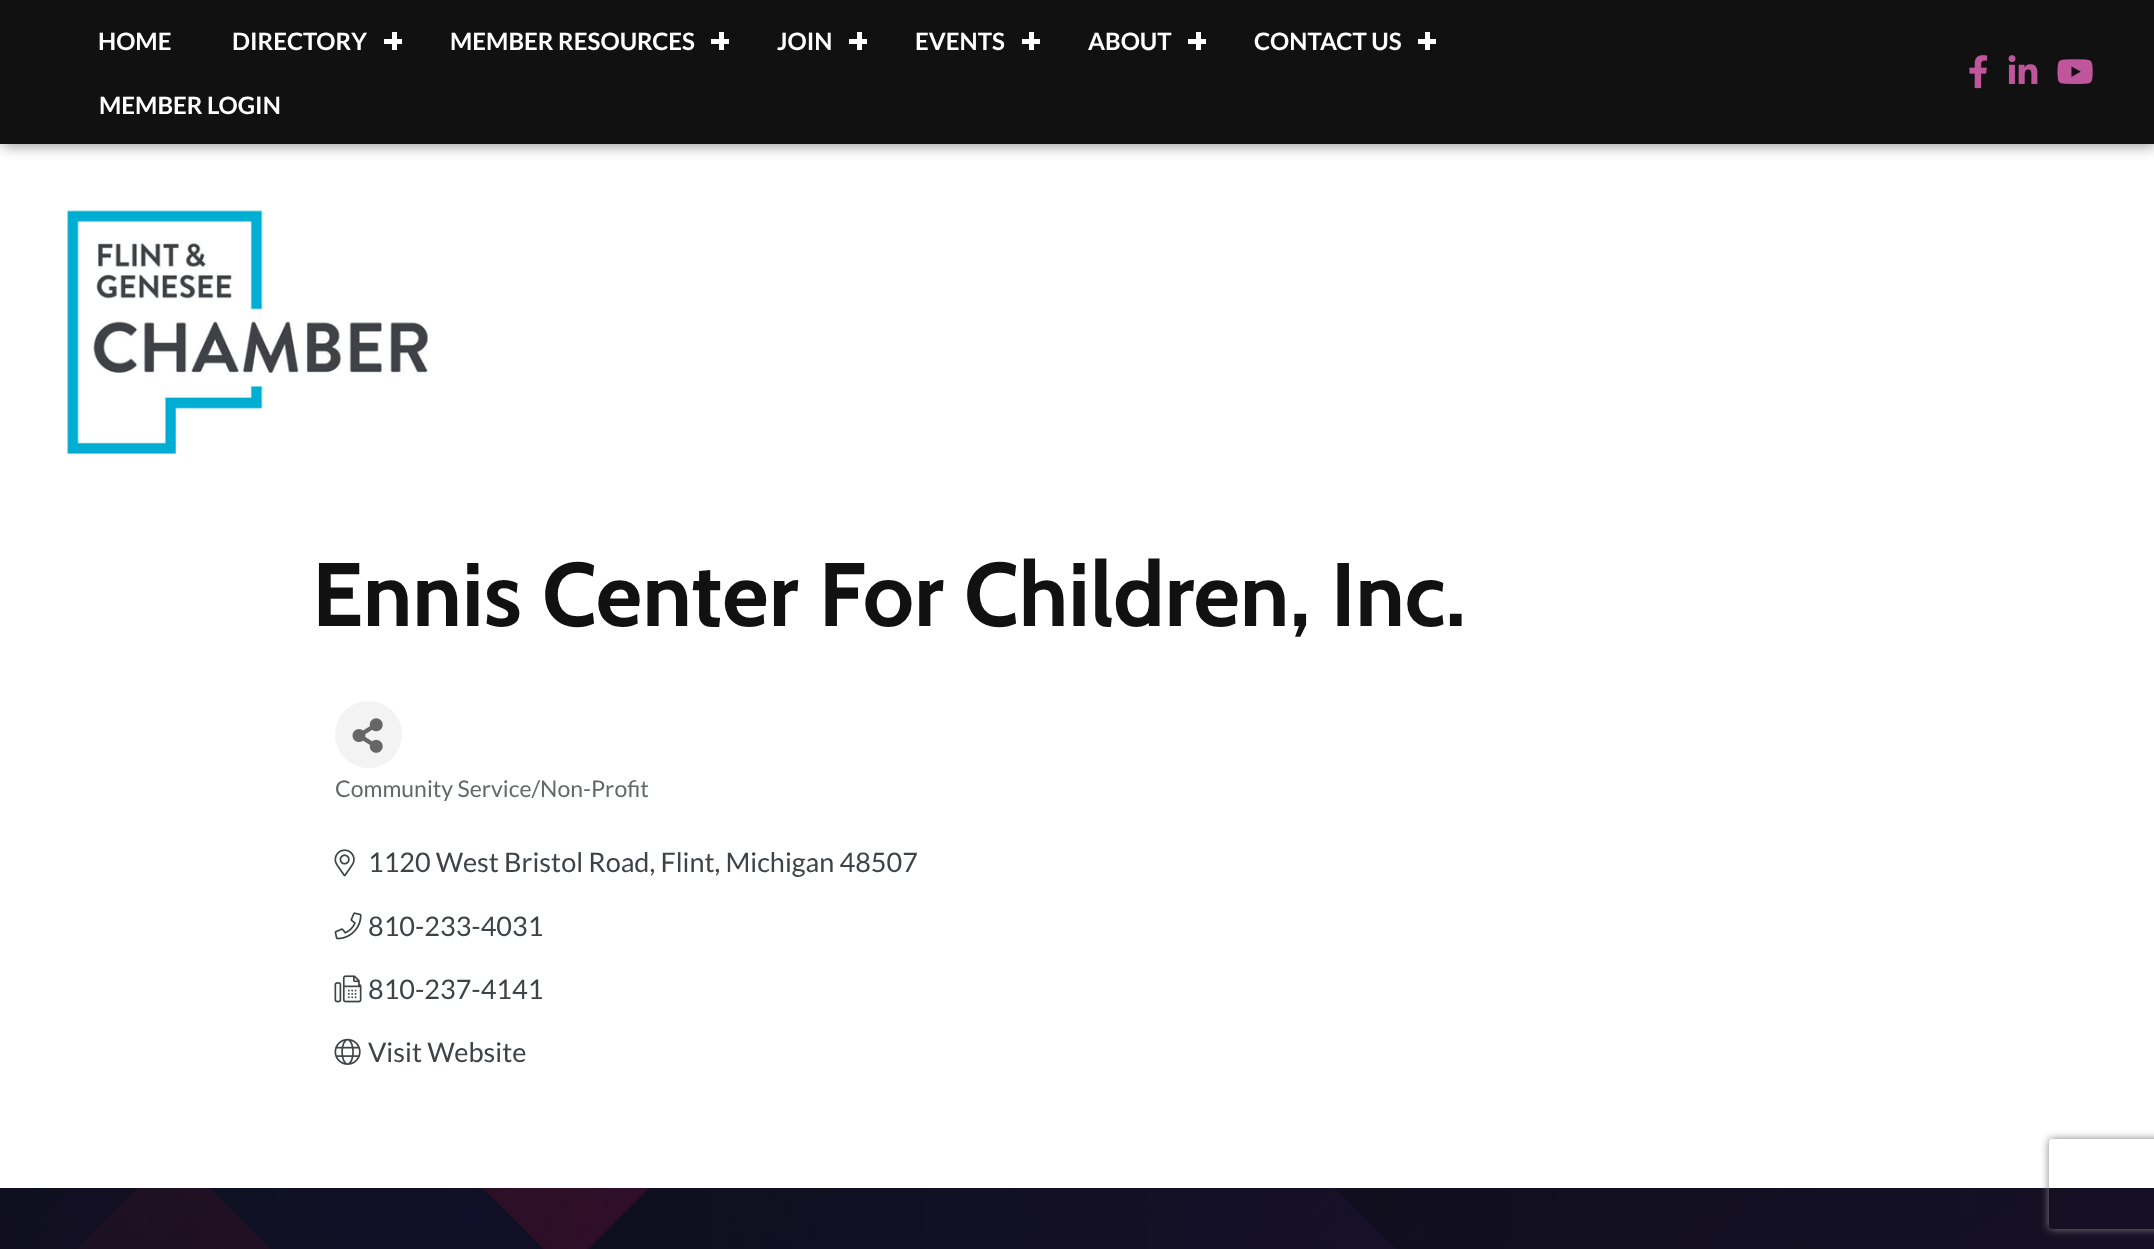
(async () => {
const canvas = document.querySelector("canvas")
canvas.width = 2154
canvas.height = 1249
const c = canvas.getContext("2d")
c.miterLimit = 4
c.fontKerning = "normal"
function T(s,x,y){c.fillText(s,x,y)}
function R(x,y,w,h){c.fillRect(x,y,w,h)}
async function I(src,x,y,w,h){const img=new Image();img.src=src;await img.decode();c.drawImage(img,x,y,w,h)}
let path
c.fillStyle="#fff"
R(0,0,2154,1249)
c.fillStyle="#999"
c.filter="blur(7px)"
c.beginPath()
c.rect(2,2,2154,144)
c.fill()
c.filter="none"
c.fillStyle="#111"
R(0,0,2154,144)
c.font="bold 24px Lato"
c.fillStyle="#fff"
T("HOME",98,50)
T("DIRECTORY",232,50)
R(384,39,18,5)
R(392,32,5,18)
T("MEMBER RESOURCES",450,50)
R(711,39,18,5)
R(719,32,5,18)
T("JOIN",777,50)
R(849,39,18,5)
R(857,32,5,18)
T("EVENTS",915,50)
R(1022,39,18,5)
R(1029,32,5,18)
T("ABOUT",1088,50)
R(1188,39,18,5)
R(1196,32,5,18)
T("CONTACT US",1254,50)
R(1418,39,18,5)
R(1425,32,5,18)
T("MEMBER LOGIN",99,114)
await I("1.png",1969,55,19,34)
await I("2.png",2008,55,30,29)
await I("3.png",2057,59,36,25)
await I("4.png",67,210,361,244)
c.font="bold 90px Cabin"
c.fillStyle="#111"
T("Ennis Center For Children, Inc.",312,626)
c.fillStyle="#f3f3f3"
c.beginPath()
c.arc(368.5,734.5,33.5,0,7)
c.fill()
await I("5.png",352,718,31,35)
c.font="23px Lato"
c.fillStyle="#65686b"
T("Community Service/Non-Profit",335,797)
await I("6.png",334,849,21,28)
c.font="27px Lato"
c.fillStyle="#3f4246"
T("1120 West Bristol Road, Flint, Michigan 48507",368,872)
await I("7.png",334,912,28,28)
T("810-233-4031",368,936)
await I("8.png",334,975,28,28)
T("810-237-4141",368,999)
await I("9.png",334,1038,27,27)
T("Visit Website",368,1062)
await I("10.png",0,1188,2154,61)
c.save()
path = new Path2D("M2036 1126h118v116h-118zm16 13h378c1.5 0 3 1.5 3 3v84c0 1.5-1.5 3-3 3h-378c-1.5 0-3-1.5-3-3v-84c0-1.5 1.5-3 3-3z")
c.clip(path,"evenodd")
c.fillStyle="#808080"
c.filter="blur(4px)"
c.beginPath()
c.roundRect(2049,1139,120,90,3)
c.fill()
c.filter="none"
c.restore()
})()
